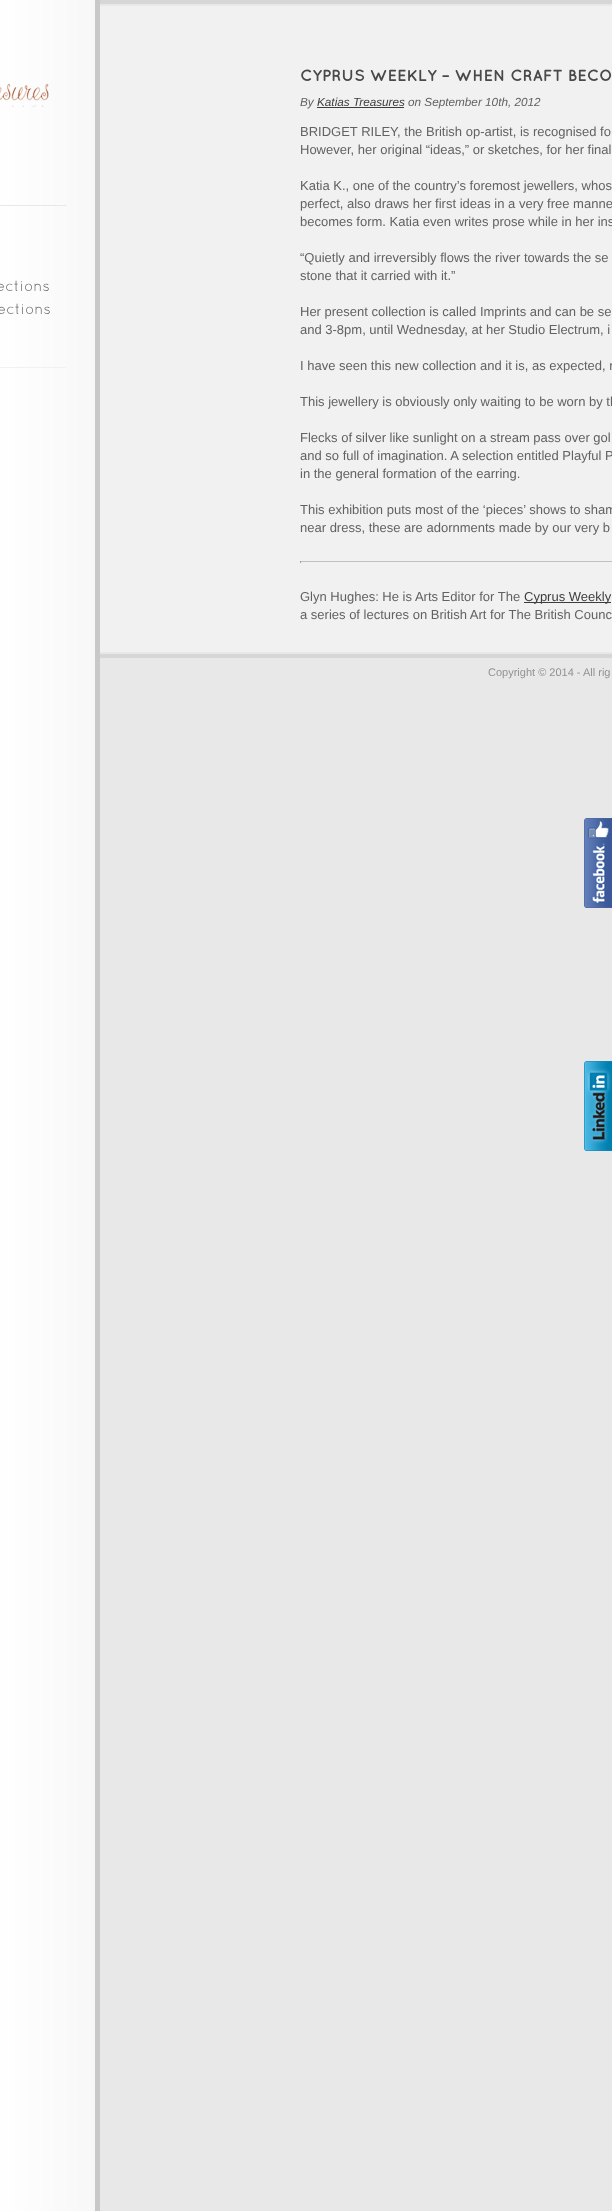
(async () => {
const canvas = document.querySelector("canvas")
canvas.width = 612
canvas.height = 2211
const c = canvas.getContext("2d")
c.miterLimit = 4
c.fontKerning = "normal"
function T(s,x,y){c.fillText(s,x,y)}
function R(x,y,w,h){c.fillRect(x,y,w,h)}
async function I(src,x,y,w,h){const img=new Image();img.src=src;await img.decode();c.drawImage(img,x,y,w,h)}
c.fillStyle="#e8e8e8"
R(0,0,612,2211)
await I("1.png",0,0,100,2211)
await I("2.png",0,83,49,24)
R(0,205,66,1)
c.fillStyle="#f1f1f1"
R(0,367,66,1)
c.font="15px Quicksand"
c.fillStyle="#6a6a6a"
T("ections",-4,291)
T("ections",-3,314)
c.fillStyle="#d6d6d6"
R(100,0,512,4)
R(100,654,512,4)
c.fillStyle="#f1f1f1"
R(100,6,512,646)
c.font="bold 16px Quicksand"
c.fillStyle="#494949"
T("CYPRUS WEEKLY – WHEN CRAFT BECO",300,81)
c.font="italic 11.75px Liberation Sans"
c.fillStyle="#636262"
T("By",300,106)
c.fillStyle="#3d3d3d"
T("Katias Treasures",317,106)
R(317,107,87,1)
c.fillStyle="#636262"
T("on September 10th, 2012",408,106)
c.font="13px Liberation Sans"
T("BRIDGET RILEY, the British op-artist, is recognised fo",300,136)
T("However, her original “ideas,” or sketches, for her final",300,154)
T("Katia K., one of the country’s foremost jewellers, whos",300,190)
T("perfect, also draws her first ideas in a very free manne",300,208)
T("becomes form. Katia even writes prose while in her ins",300,226)
T("“Quietly and irreversibly flows the river towards the se",300,262)
T("stone that it carried with it.”",300,280)
T("Her present collection is called Imprints and can be se",300,316)
T("and 3-8pm, until Wednesday, at her Studio Electrum, i",300,334)
T("I have seen this new collection and it is, as expected, r",300,370)
T("This jewellery is obviously only waiting to be worn by th",300,406)
T("Flecks of silver like sunlight on a stream pass over gol",300,442)
T("and so full of imagination. A selection entitled Playful P",300,460)
T("in the general formation of the earring.",300,478)
T("This exhibition puts most of the ‘pieces’ shows to sham",300,514)
T("near dress, these are adornments made by our very b",300,532)
c.fillStyle="#c1c1c1"
R(300,561,312,1)
c.fillStyle="#9f9f9f"
R(300,561,1,2)
c.fillStyle="#636262"
T("Glyn Hughes: He is Arts Editor for The",300,601)
c.fillStyle="#3d3d3d"
R(524,602,87,1)
T("Cyprus Weekly",524,601)
c.fillStyle="#636262"
T("a series of lectures on British Art for The British Counc",300,619)
c.font="11px Liberation Sans"
c.fillStyle="#929292"
T("Copyright © 2014 - All rig",488,676)
await I("3.png",584,818,28,90)
await I("4.png",584,1061,28,90)
})()
